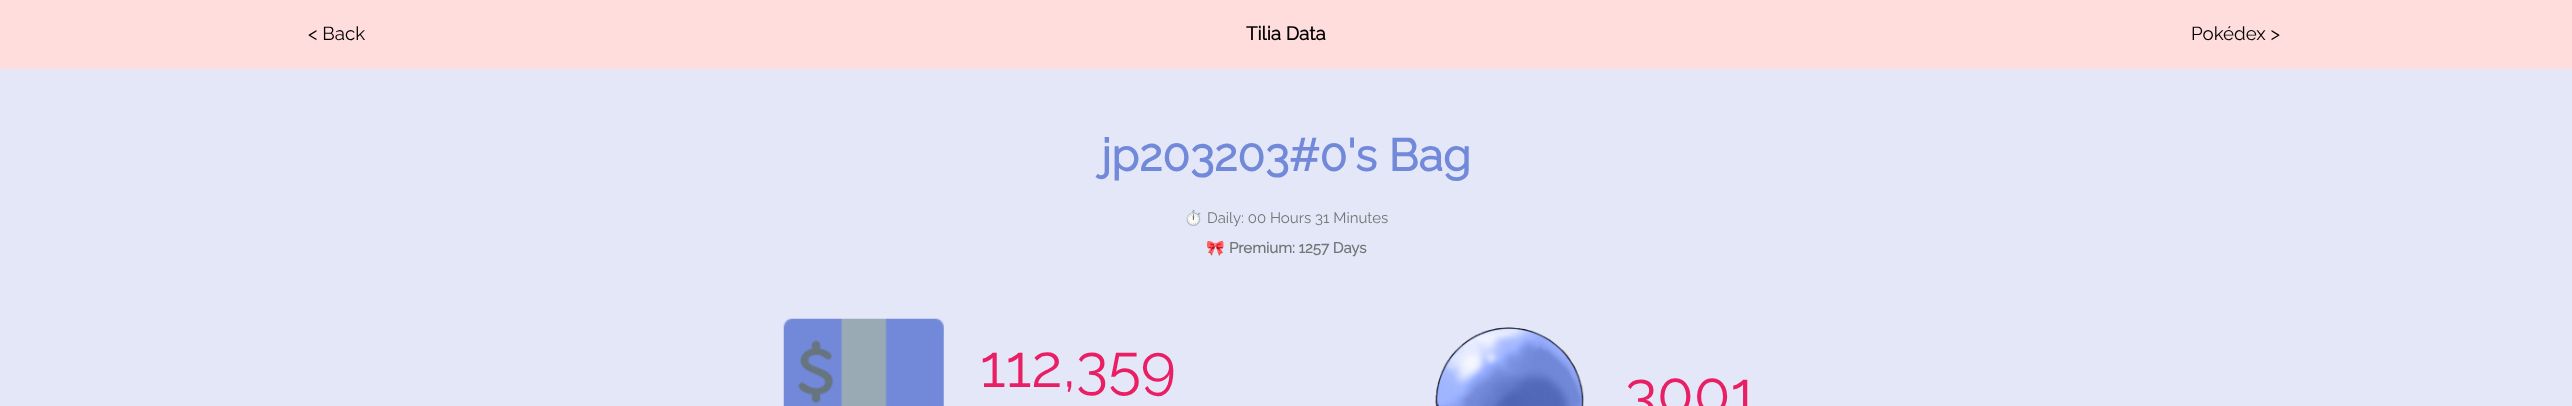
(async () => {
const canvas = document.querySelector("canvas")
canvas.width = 2572
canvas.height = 406
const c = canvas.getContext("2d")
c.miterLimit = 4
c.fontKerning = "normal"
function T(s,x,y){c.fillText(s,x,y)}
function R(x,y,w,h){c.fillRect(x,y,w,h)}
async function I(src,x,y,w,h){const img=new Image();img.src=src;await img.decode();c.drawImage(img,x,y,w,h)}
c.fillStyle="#e3e7f8"
R(0,0,2572,406)
c.fillStyle="#fdd"
R(0,0,2572,69)
c.font="100 18.75px Raleway"
c.fillStyle="#000"
T("< Back",308,40)
c.font="bold 18.75px Raleway"
T("Tilia Data",1246,40)
c.font="100 18.75px Raleway"
T("Pokédex >",2191,40)
c.font="bold 45px Raleway"
c.fillStyle="#7289da"
T("jp203203#0's Bag",1101,171)
c.font="15px Noto Color Emoji"
c.fillStyle="#757575"
T("⏱️",1184,223)
c.font="100 15px Raleway"
T("Daily: 00 Hours 31 Minutes",1207,223)
c.font="bold 15px Noto Color Emoji"
T("🎀",1206,253)
c.font="bold 15px Raleway"
T("Premium: 1257 Days",1229,253)
await I("1.png",783,318,161,88)
c.font="100 60px Raleway"
c.fillStyle="#e91e63"
T("112,359",980,387)
await I("2.png",1435,327,149,79)
T("3001",1625,414)
})()
